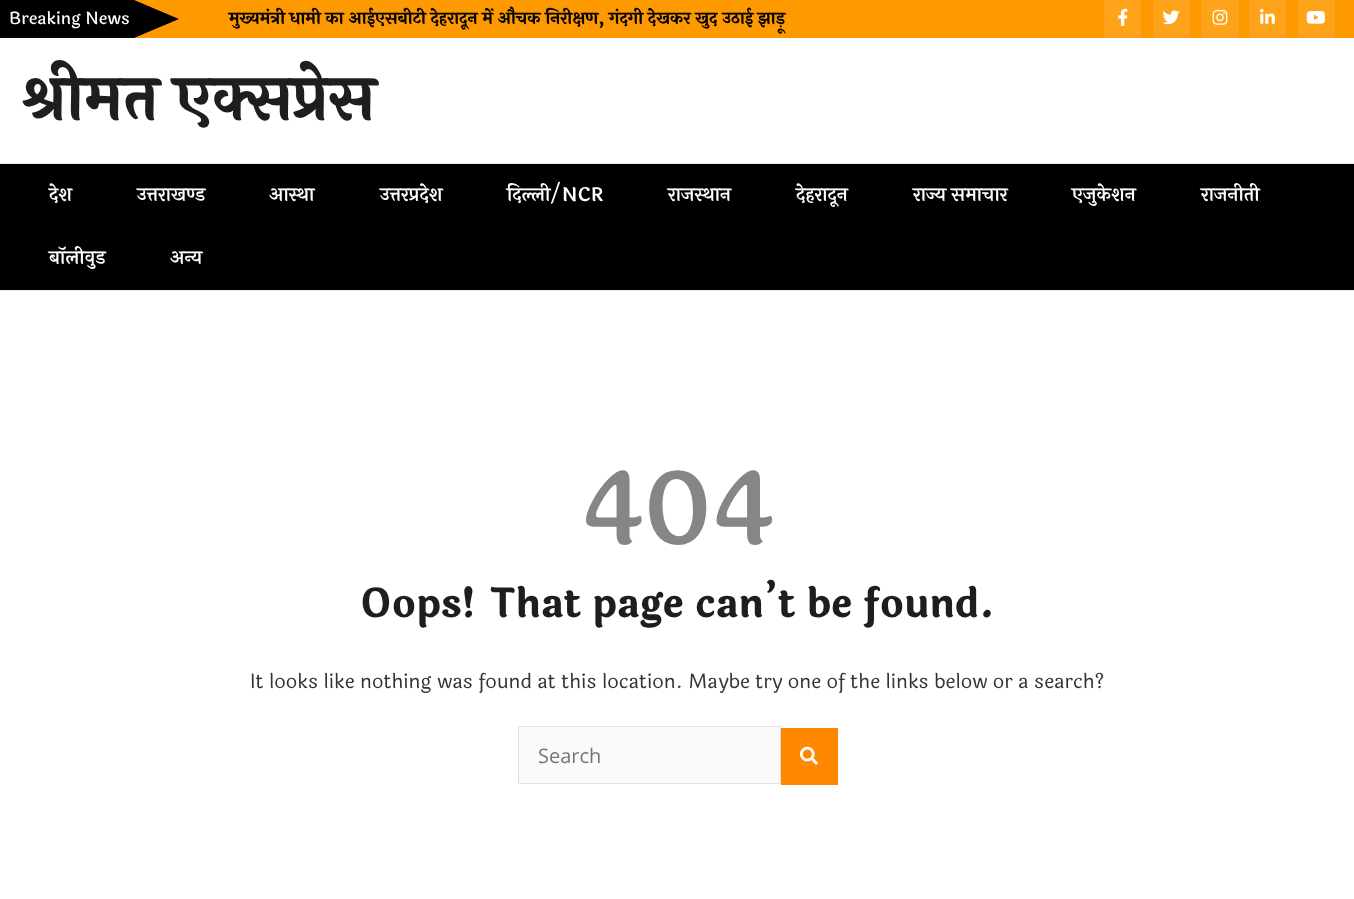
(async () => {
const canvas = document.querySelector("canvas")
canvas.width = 1354
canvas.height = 899
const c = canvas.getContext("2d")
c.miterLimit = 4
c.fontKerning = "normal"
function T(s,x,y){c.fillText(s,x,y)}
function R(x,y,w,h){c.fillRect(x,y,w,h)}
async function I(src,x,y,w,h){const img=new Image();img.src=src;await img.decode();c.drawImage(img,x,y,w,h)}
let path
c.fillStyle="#fff"
R(0,0,1354,899)
c.fillStyle="#f90"
R(134,0,1220,38)
c.fillStyle="#000"
path = new Path2D("M-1 0v38h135l45-19l-45-19z")
c.fill(path)
c.font="500 17px Laila"
c.fillStyle="#fff"
T("Breaking News",9,24)
c.font="bold 17px Laila"
c.fillStyle="#000"
T("मुख्यमंत्री धामी का आईएसबीटी देहरादून में औचक निरीक्षण, गंदगी देखकर खुद उठाई झाड़ू",229,24)
c.fillStyle="#ffa31a"
R(1104,0,37,38)
await I("1.png",1118,8,10,18)
R(1153,0,37,38)
await I("2.png",1162,10,18,15)
R(1201,0,38,38)
await I("3.png",1212,9,16,16)
R(1249,0,37,38)
await I("4.png",1260,8,15,16)
R(1298,0,37,38)
await I("5.png",1306,11,19,13)
c.fillStyle="#ebebeb"
R(0,163,1354,1)
c.font="bold 62.5px Laila"
c.fillStyle="#1e1e1e"
T("श्रीमत एक्सप्रेस",20,120)
c.fillStyle="#ebebeb"
R(0,290,1354,1)
c.fillStyle="#000"
R(0,164,1354,126)
c.font="600 19px Laila"
c.fillStyle="#fff"
T("देश",49,201)
T("उत्तराखण्ड",137,201)
T("आस्था",269,201)
T("उत्तरप्रदेश",380,201)
T("दिल्ली/NCR",507,201)
T("राजस्थान",668,201)
T("देहरादून",796,201)
T("राज्य समाचार",913,201)
T("एजुकेशन",1072,201)
T("राजनीती",1201,201)
T("बॉलीवुड",49,264)
T("अन्य",170,264)
c.font="600 100px Laila"
c.fillStyle="#868686"
T("404",581,544)
c.font="bold 40px Laila"
c.fillStyle="#1e1e1e"
T("Oops! That page can’t be found.",360,617)
c.font="20px Laila"
c.fillStyle="#323232"
T("It looks like nothing was found at this location. Maybe try one of the links below or a search?",250,688)
c.fillStyle="#fafafa"
c.beginPath()
c.rect(518.5,726.5,262,57)
c.fill()
c.strokeStyle="#e1e1e1"
c.stroke()
c.font="20px Open Sans"
c.fillStyle="#757575"
T("Search",538,763)
c.fillStyle="#f80"
R(781,728,57,57)
await I("6.png",800,746,18,19)
})()
